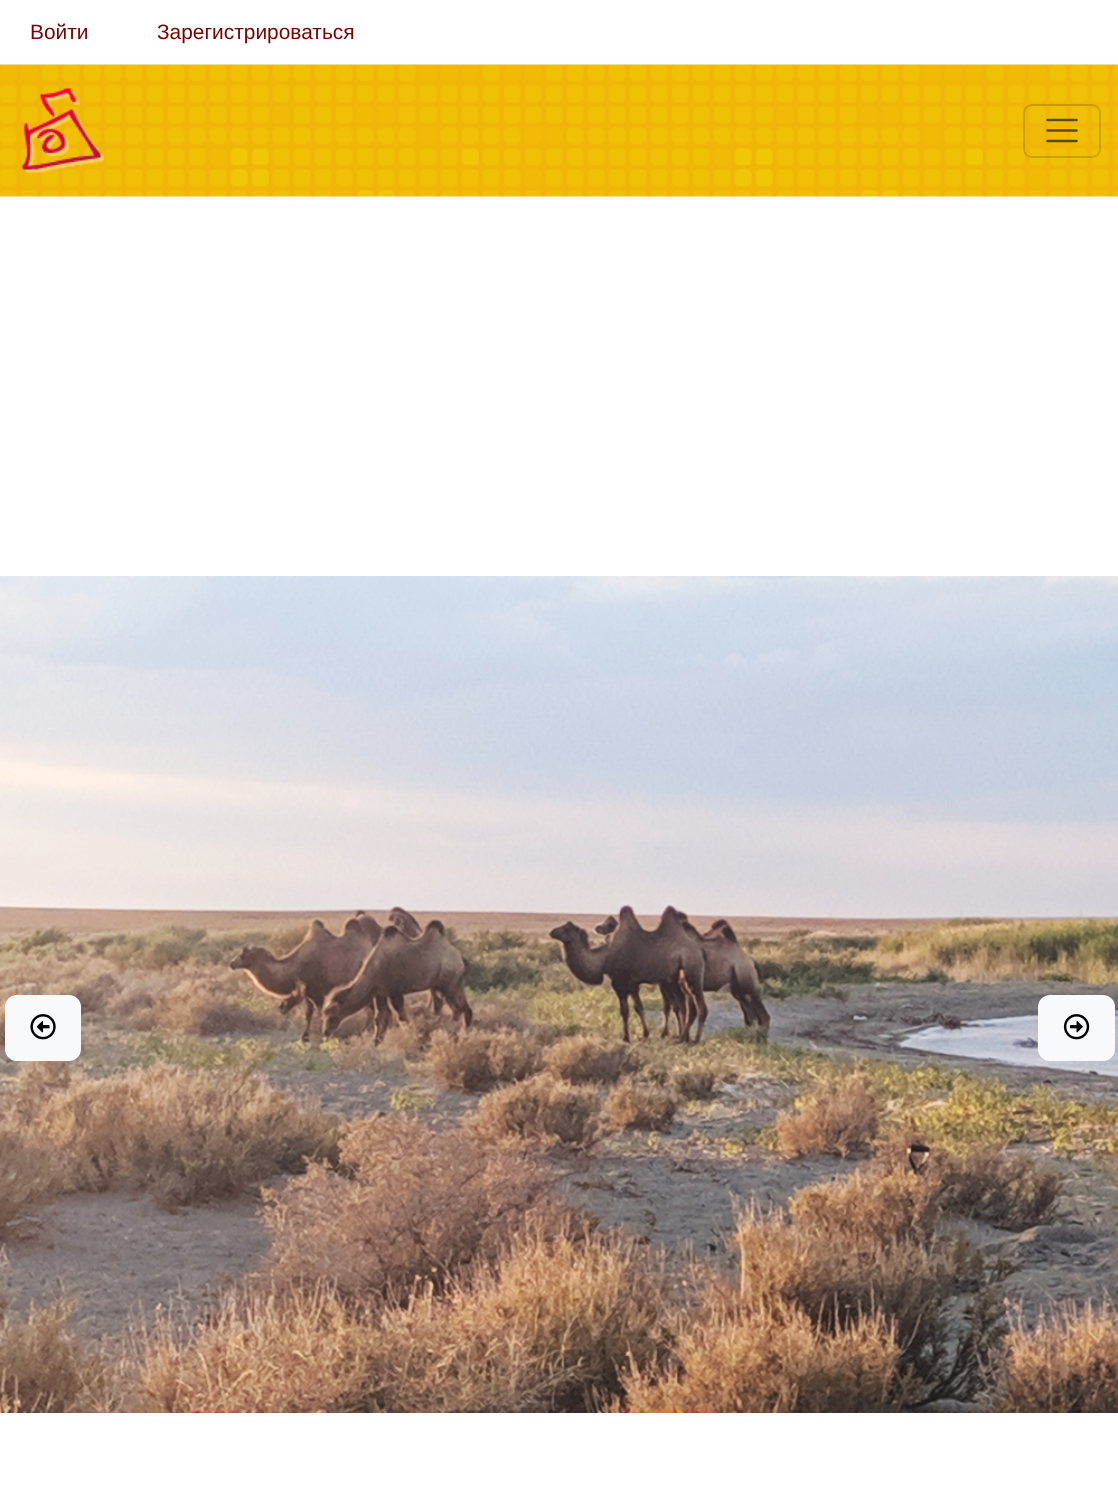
(async () => {
const canvas = document.querySelector("canvas")
canvas.width = 1118
canvas.height = 1507
const c = canvas.getContext("2d")
c.miterLimit = 4
c.fontKerning = "normal"
function T(s,x,y){c.fillText(s,x,y)}
function R(x,y,w,h){c.fillRect(x,y,w,h)}
async function I(src,x,y,w,h){const img=new Image();img.src=src;await img.decode();c.drawImage(img,x,y,w,h)}
let path
c.fillStyle="#fff"
R(0,0,1118,1507)
c.font="20.9px Liberation Sans"
c.fillStyle="#700"
T("Войти",30,39)
T("Зарегистрироваться",157,39)
await I("1.png",0,64,1118,133)
await I("2.png",22,88,82,85)
c.beginPath()
c.roundRect(1024,105,76,52,8)
c.strokeStyle="#00000026"
c.lineWidth=2
c.stroke()
path = new Path2D("M1047.5 120h29m-29 10.5h29m-29 10.5h29")
c.strokeStyle="#212529bf"
c.lineWidth=2.6
c.lineCap="round"
c.stroke(path)
await I("3.png",0,576,1118,837)
c.fillStyle="#f8f9fa"
c.beginPath()
c.roundRect(6,996,74,64,11)
c.fill()
c.strokeStyle="#f8f9fa"
c.lineWidth=2
c.stroke()
await I("4.png",30,1014,26,26)
c.beginPath()
c.roundRect(1039,996,75,64,11)
c.fill()
c.stroke()
await I("5.png",1063,1014,27,26)
})()
